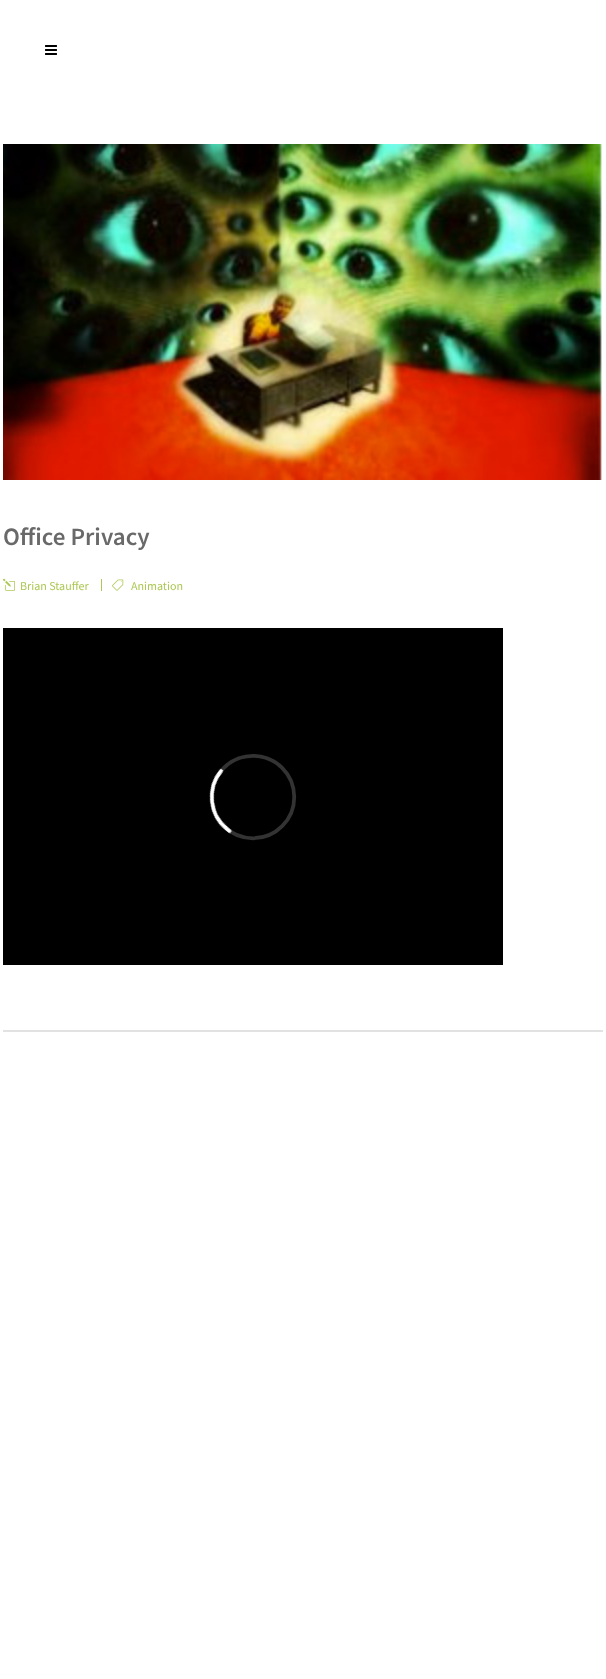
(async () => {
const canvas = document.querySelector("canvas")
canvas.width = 606
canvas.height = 1679
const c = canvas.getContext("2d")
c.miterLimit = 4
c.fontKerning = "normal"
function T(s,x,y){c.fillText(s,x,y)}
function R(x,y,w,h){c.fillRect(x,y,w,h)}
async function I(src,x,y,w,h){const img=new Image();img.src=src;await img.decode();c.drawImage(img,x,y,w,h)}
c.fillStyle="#fff"
R(0,0,606,1679)
await I("1.png",45,45,12,10)
c.fillStyle="#e2e2e2"
R(3,1030,600,2)
await I("2.png",3,144,600,336)
c.font="600 25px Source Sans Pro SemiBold"
c.fillStyle="#696969"
T("Office Privacy",3,545)
await I("3.png",3,578,12,13)
c.font="12px Source Sans Pro"
c.fillStyle="#acc752"
T("Brian Stauffer",20,590)
await I("4.png",112,579,12,12)
T("Animation",131,590)
R(101,579,1,12)
await I("5.png",3,628,500,337)
})()
